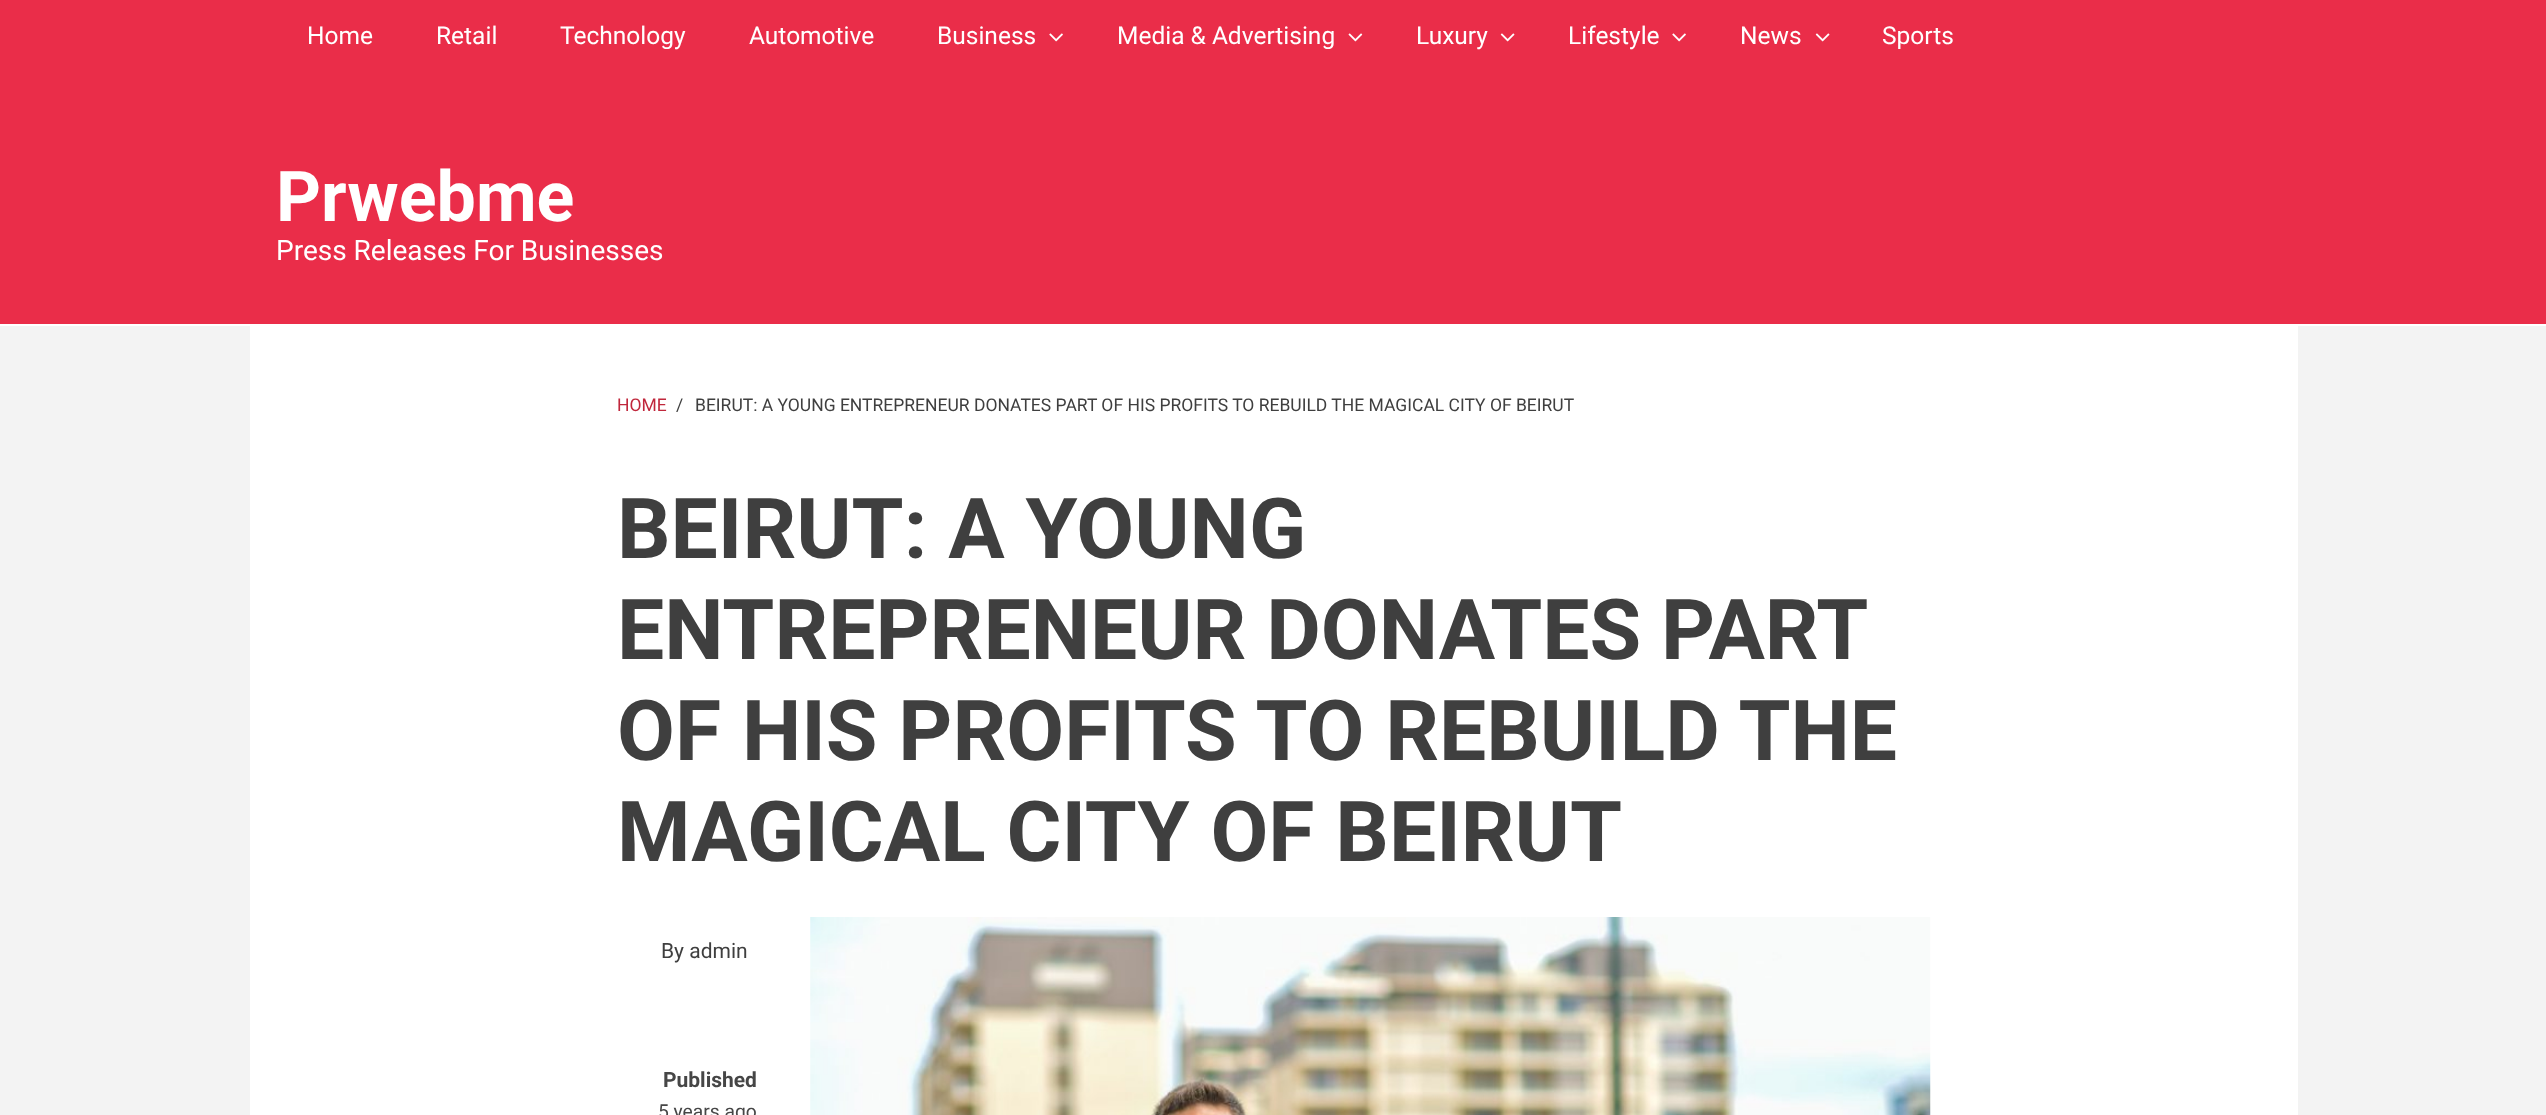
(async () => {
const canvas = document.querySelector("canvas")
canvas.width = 2546
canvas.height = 1115
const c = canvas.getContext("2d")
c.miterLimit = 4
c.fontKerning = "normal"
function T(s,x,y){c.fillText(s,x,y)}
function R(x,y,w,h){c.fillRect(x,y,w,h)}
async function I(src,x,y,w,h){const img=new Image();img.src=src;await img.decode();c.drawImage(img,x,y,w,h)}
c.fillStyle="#f3f3f3"
R(0,0,2546,1115)
c.fillStyle="#ea2d49"
R(0,0,2546,324)
c.font="24.5px Roboto"
c.fillStyle="#fff"
T("Home",307,44)
T("Retail",436,44)
T("Technology",560,44)
T("Automotive",749,44)
T("Business",937,44)
await I("1.png",1049,33,14,9)
T("Media & Advertising",1117,44)
await I("2.png",1348,33,15,9)
T("Luxury",1416,44)
await I("3.png",1500,33,15,9)
T("Lifestyle",1568,44)
await I("1.png",1672,33,14,9)
T("News",1740,44)
await I("3.png",1815,33,15,9)
T("Sports",1882,44)
R(0,324,2546,2)
c.font="bold 70px Roboto"
T("Prwebme",276,221)
c.font="28px Roboto"
T("Press Releases For Businesses",276,260)
R(250,326,2048,789)
c.font="17.5px Roboto"
c.fillStyle="#c0273c"
T("HOME",617,411)
c.fillStyle="#3f3f3f"
T("/",676,411)
T("BEIRUT: A YOUNG ENTREPRENEUR DONATES PART OF HIS PROFITS TO REBUILD THE MAGICAL CITY OF BEIRUT",695,411)
c.font="bold 84px Roboto"
T("BEIRUT: A YOUNG",617,558)
c.wordSpacing="-1px"
T("ENTREPRENEUR DONATES PART",617,659)
c.wordSpacing="0px"
T("OF HIS PROFITS TO REBUILD THE",617,760)
T("MAGICAL CITY OF BEIRUT",617,861)
c.font="21px Roboto"
T("By admin",661,958)
c.font="bold 21px Roboto"
c.fillStyle="#464646"
T("Published",663,1087)
c.font="19.25px Roboto"
T("5 years ago",658,1118)
await I("4.png",810,917,1121,198)
})()
